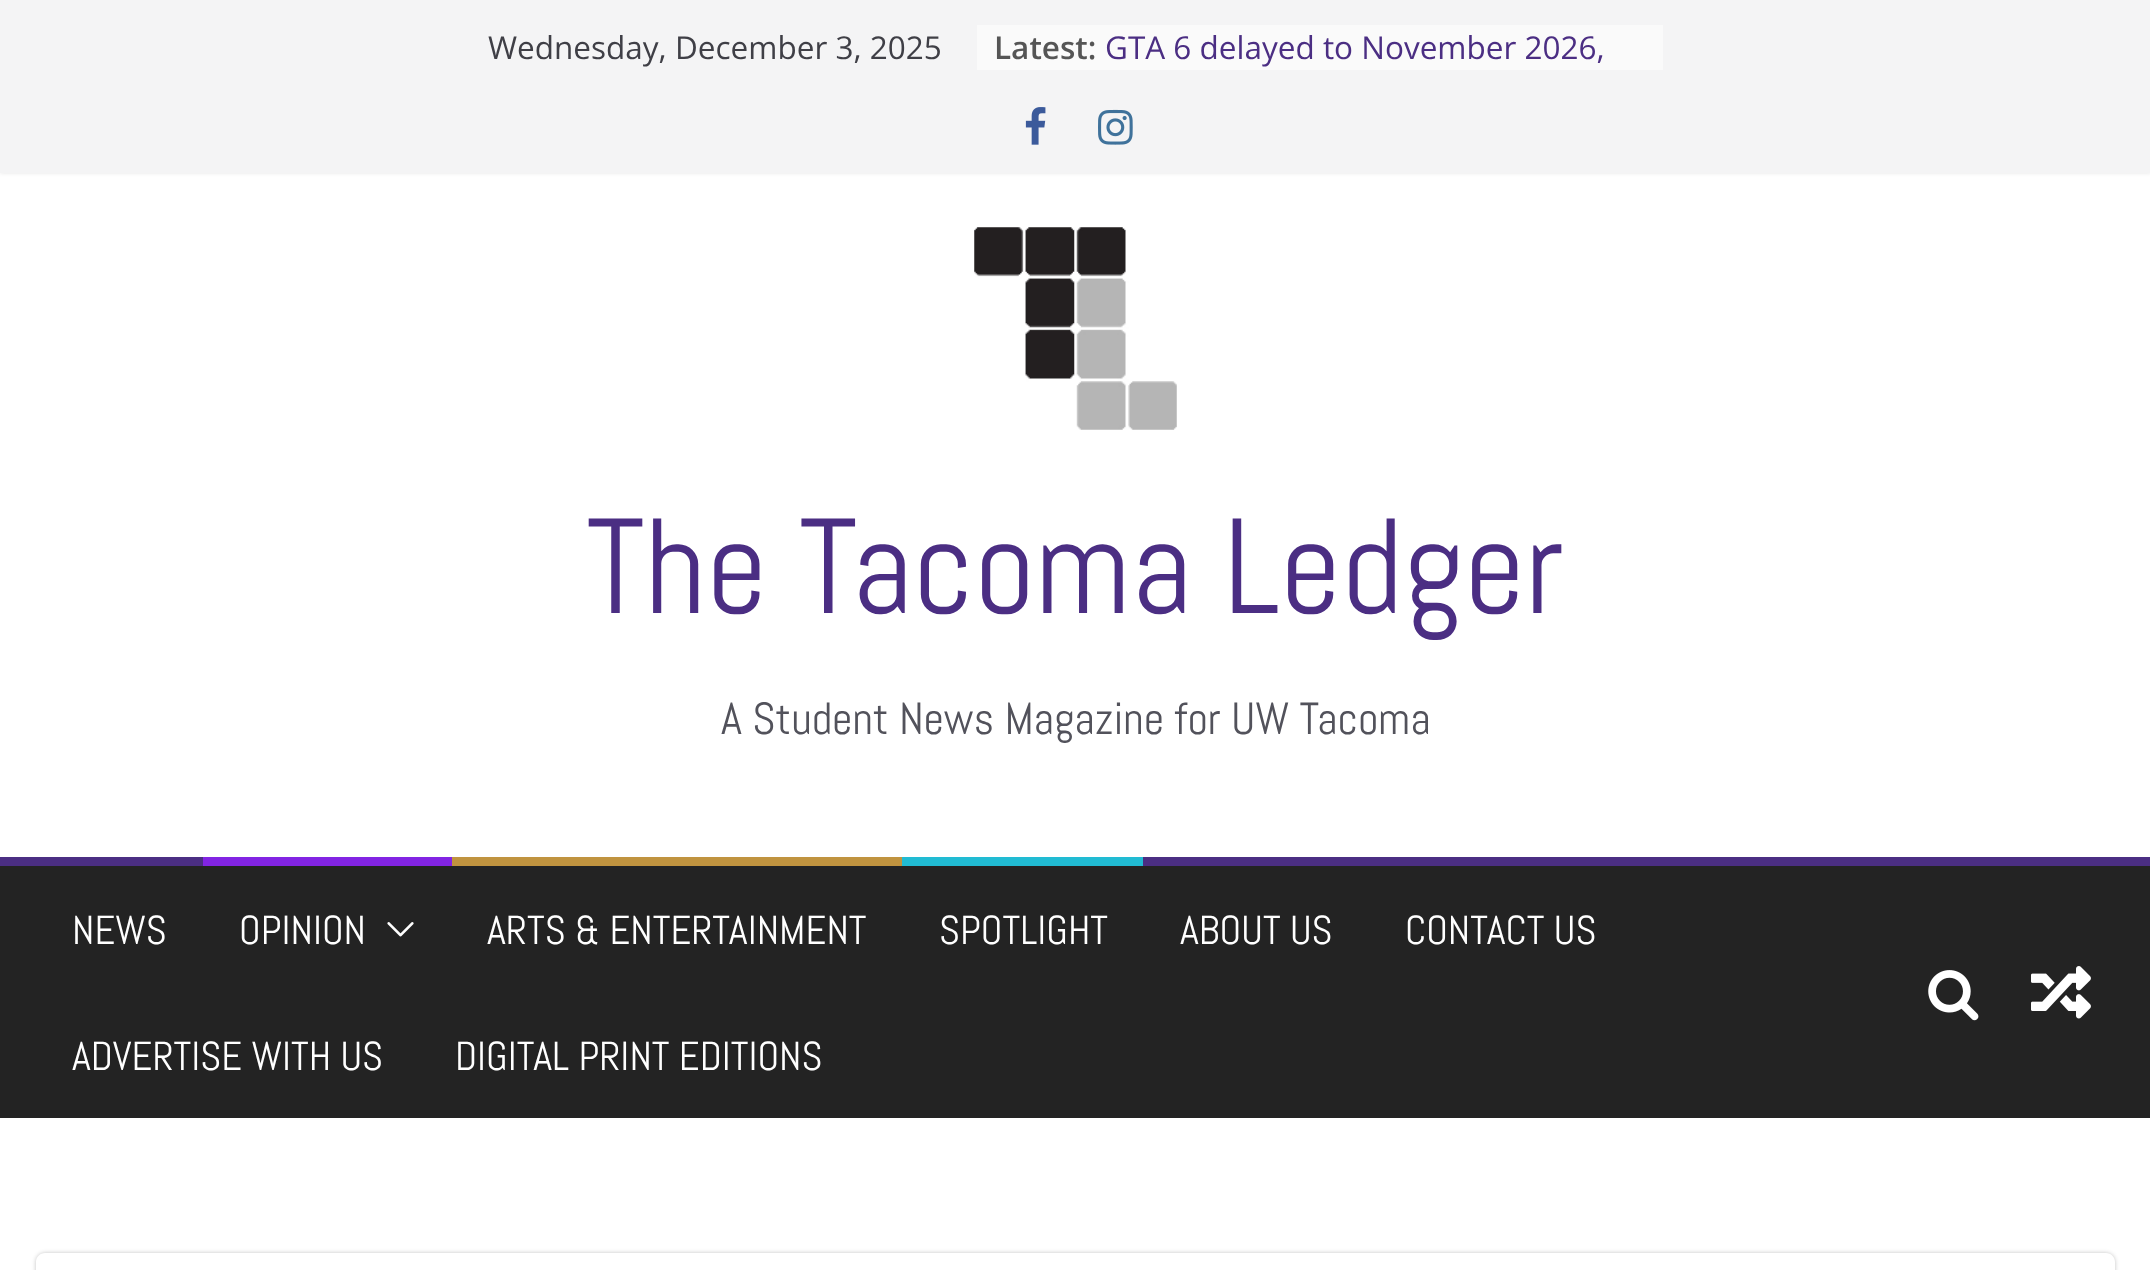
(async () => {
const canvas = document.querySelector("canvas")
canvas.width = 2150
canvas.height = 1270
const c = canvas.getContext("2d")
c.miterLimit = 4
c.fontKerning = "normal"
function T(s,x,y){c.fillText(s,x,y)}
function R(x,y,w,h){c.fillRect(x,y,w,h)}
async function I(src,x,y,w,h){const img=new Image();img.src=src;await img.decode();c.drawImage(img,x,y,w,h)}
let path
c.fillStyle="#fff"
R(0,0,2150,1270)
c.fillStyle="#0000001a"
c.filter="blur(2px)"
c.beginPath()
c.rect(0,0,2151,173)
c.fill()
c.filter="none"
c.fillStyle="#f4f4f5"
R(0,0,2150,173)
c.font="31.5px Open Sans"
c.fillStyle="#3f3f46"
T("Wednesday, December 3, 2025",488,59)
c.fillStyle="#fafafa"
R(977,25,686,45)
c.font="600 31.5px Open Sans"
c.fillStyle="#555"
T("Latest:",994,59)
c.font="31.5px Open Sans"
c.fillStyle="#4b2e83"
T("GTA 6 delayed to November 2026,",1105,59)
await I("1.png",1025,107,21,38)
await I("2.png",1098,109,35,36)
await I("3.png",974,227,203,203)
c.font="135px Abel"
T("The Tacoma Ledger",586,613)
c.font="45px Abel"
c.fillStyle="#52525b"
T("A Student News Magazine for UW Tacoma",721,734)
c.fillStyle="#232323"
R(0,866,2150,252)
c.fillStyle="#4b2e83"
R(0,857,2150,9)
c.font="40.5px Abel"
c.fillStyle="#fff"
T("NEWS",72,944)
c.fillStyle="#8224e3"
R(203,857,249,9)
c.fillStyle="#fff"
T("OPINION",239,944)
await I("4.png",387,922,27,15)
c.fillStyle="#c0933f"
R(452,857,450,9)
c.fillStyle="#fff"
T("ARTS & ENTERTAINMENT",487,944)
c.fillStyle="#21bbd3"
R(902,857,241,9)
c.fillStyle="#fff"
T("SPOTLIGHT",939,944)
T("ABOUT US",1180,944)
T("CONTACT US",1405,944)
T("ADVERTISE WITH US",72,1070)
T("DIGITAL PRINT EDITIONS",455,1070)
await I("5.png",1928,970,51,51)
await I("6.png",2031,966,60,53)
c.save()
path = new Path2D("M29 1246h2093v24h-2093zm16 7h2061c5 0 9 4 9 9v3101c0 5-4 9-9 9h-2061c-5 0-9-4-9-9v-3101c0-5 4-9 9-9z")
c.clip(path,"evenodd")
c.fillStyle="#0000003d"
c.filter="blur(2px)"
c.beginPath()
c.roundRect(36,1253,2079,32,9)
c.fill()
c.filter="none"
c.restore()
})()
